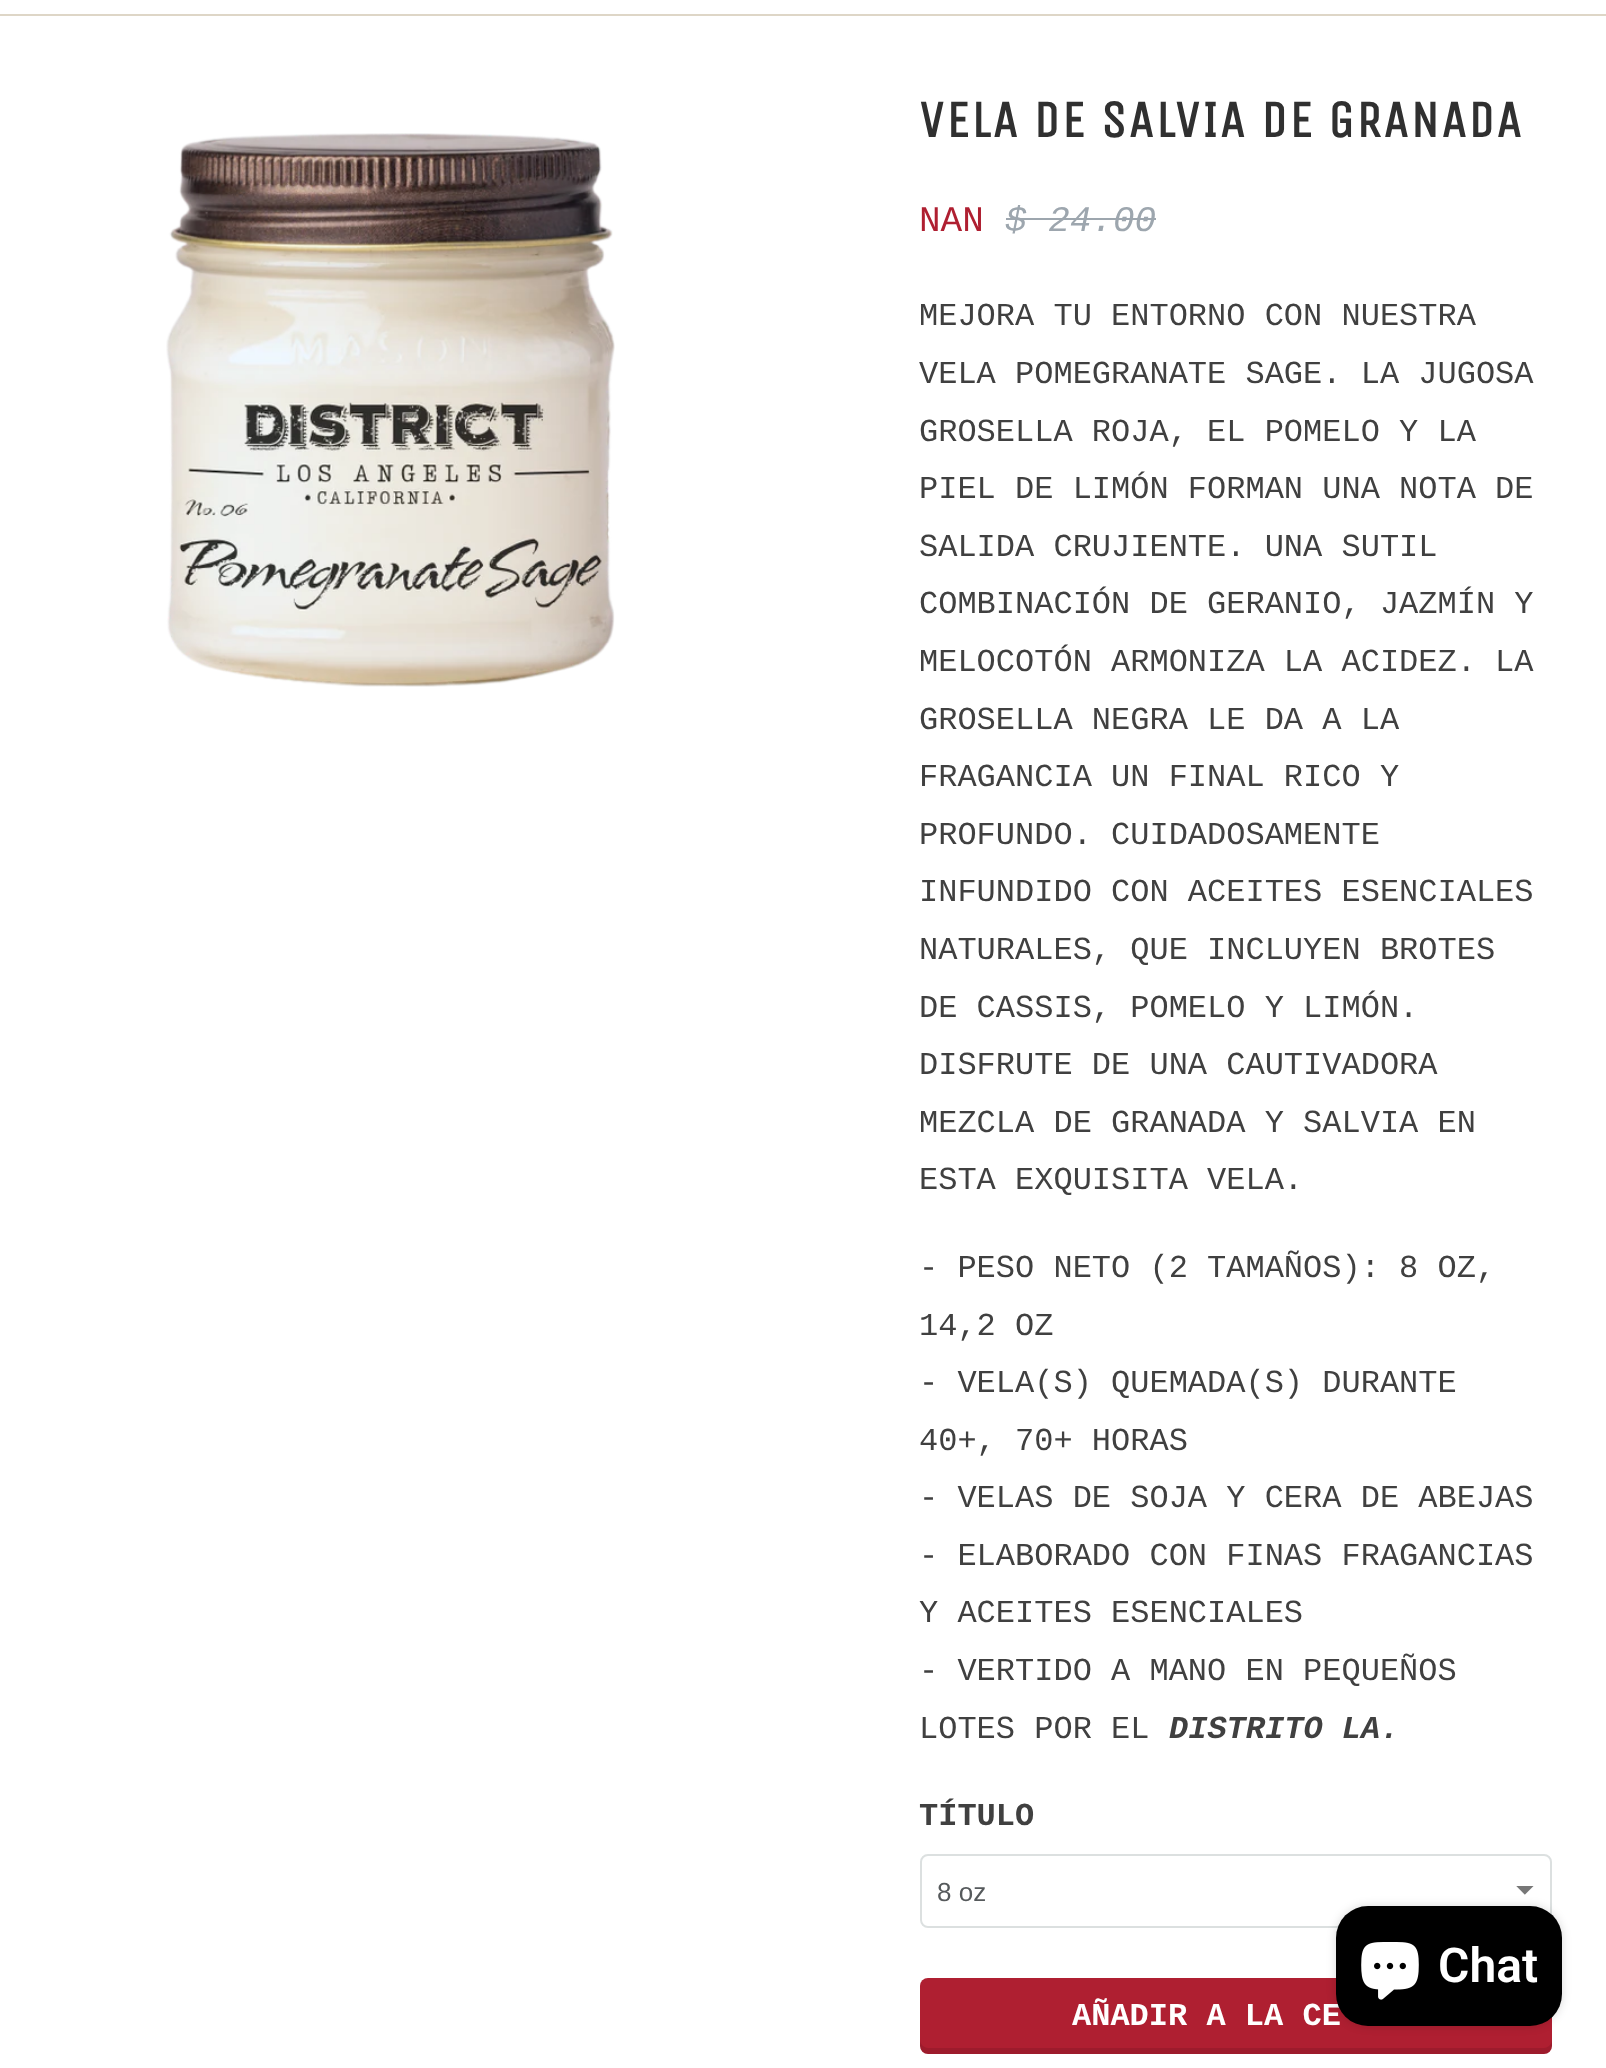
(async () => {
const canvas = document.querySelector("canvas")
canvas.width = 1606
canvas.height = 2068
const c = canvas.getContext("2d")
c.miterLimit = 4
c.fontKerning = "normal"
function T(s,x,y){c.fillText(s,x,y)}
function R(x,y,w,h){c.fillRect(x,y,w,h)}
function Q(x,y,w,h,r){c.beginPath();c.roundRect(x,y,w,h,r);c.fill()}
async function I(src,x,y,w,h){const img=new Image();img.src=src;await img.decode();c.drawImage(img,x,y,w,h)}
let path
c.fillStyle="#fff"
R(0,0,1606,2068)
c.fillStyle="#ded6c7"
R(0,14,1606,2)
await I("1.png",166,133,449,554)
c.letterSpacing="2px"
c.font="bold 52px Unica One"
c.fillStyle="#303030"
T("VELA DE SALVIA DE GRANADA",919,137)
c.letterSpacing="0px"
c.font="36px Liberation Mono"
c.fillStyle="#af1f31"
T("NAN",919,231)
c.font="italic 36px Liberation Mono"
c.fillStyle="#9da6ae"
T("$ 24.00",1005,231)
R(1006,218,150,2)
c.font="32px Liberation Mono"
c.fillStyle="#404040"
T("MEJORA TU ENTORNO CON NUESTRA",919,325)
T("VELA POMEGRANATE SAGE. LA JUGOSA",919,383)
T("GROSELLA ROJA, EL POMELO Y LA",919,441)
T("PIEL DE LIMÓN FORMAN UNA NOTA DE",919,498)
T("SALIDA CRUJIENTE. UNA SUTIL",919,556)
T("COMBINACIÓN DE GERANIO, JAZMÍN Y",919,613)
T("MELOCOTÓN ARMONIZA LA ACIDEZ. LA",919,671)
T("GROSELLA NEGRA LE DA A LA",919,729)
T("FRAGANCIA UN FINAL RICO Y",919,786)
T("PROFUNDO. CUIDADOSAMENTE",919,844)
T("INFUNDIDO CON ACEITES ESENCIALES",919,901)
T("NATURALES, QUE INCLUYEN BROTES",919,959)
T("DE CASSIS, POMELO Y LIMÓN.",919,1017)
T("DISFRUTE DE UNA CAUTIVADORA",919,1074)
T("MEZCLA DE GRANADA Y SALVIA EN",919,1132)
T("ESTA EXQUISITA VELA.",919,1189)
T("- PESO NETO (2 TAMAÑOS): 8 OZ,",919,1277)
T("14,2 OZ",919,1335)
T("- VELA(S) QUEMADA(S) DURANTE",919,1392)
T("40+, 70+ HORAS",919,1450)
T("- VELAS DE SOJA Y CERA DE ABEJAS",919,1507)
T("- ELABORADO CON FINAS FRAGANCIAS",919,1565)
T("Y ACEITES ESENCIALES",919,1622)
T("- VERTIDO A MANO EN PEQUEÑOS",919,1680)
T("LOTES POR EL",919,1738)
c.font="italic bold 32px Liberation Mono"
T("DISTRITO LA.",1169,1738)
c.font="bold 32px Liberation Mono"
T("TÍTULO",919,1825)
await I("2.png",1516,1886,18,9)
c.beginPath()
c.roundRect(921,1855,630,72,7)
c.strokeStyle="#dce0e0"
c.lineWidth=2
c.stroke()
c.font="26px Liberation Sans"
c.fillStyle="#565a5c"
T("8 oz",937,1901)
c.fillStyle="#af1f31"
Q(920,1978,632,76,8)
c.fillStyle="#0000001a"
path = new Path2D("M920 2040v6c0 4 4 8 8 8h616c4 0 8-4 8-8v-6c0 4-4 8-8 8h-616c-4 0-8-4-8-8z")
c.fill(path)
c.font="bold 32px Liberation Mono"
c.fillStyle="#fff"
T("AÑADIR A LA CE",1072,2025)
c.fillStyle="#00000026"
c.filter="blur(5px)"
c.beginPath()
c.roundRect(1336,1906,226,120,32)
c.fill()
c.filter="none"
c.fillStyle="#000"
Q(1336,1906,226,120,32)
await I("3.png",1361,1942,58,58)
c.font="600 48px Roboto"
c.fillStyle="#fff"
T("Chat",1438,1982)
})()
